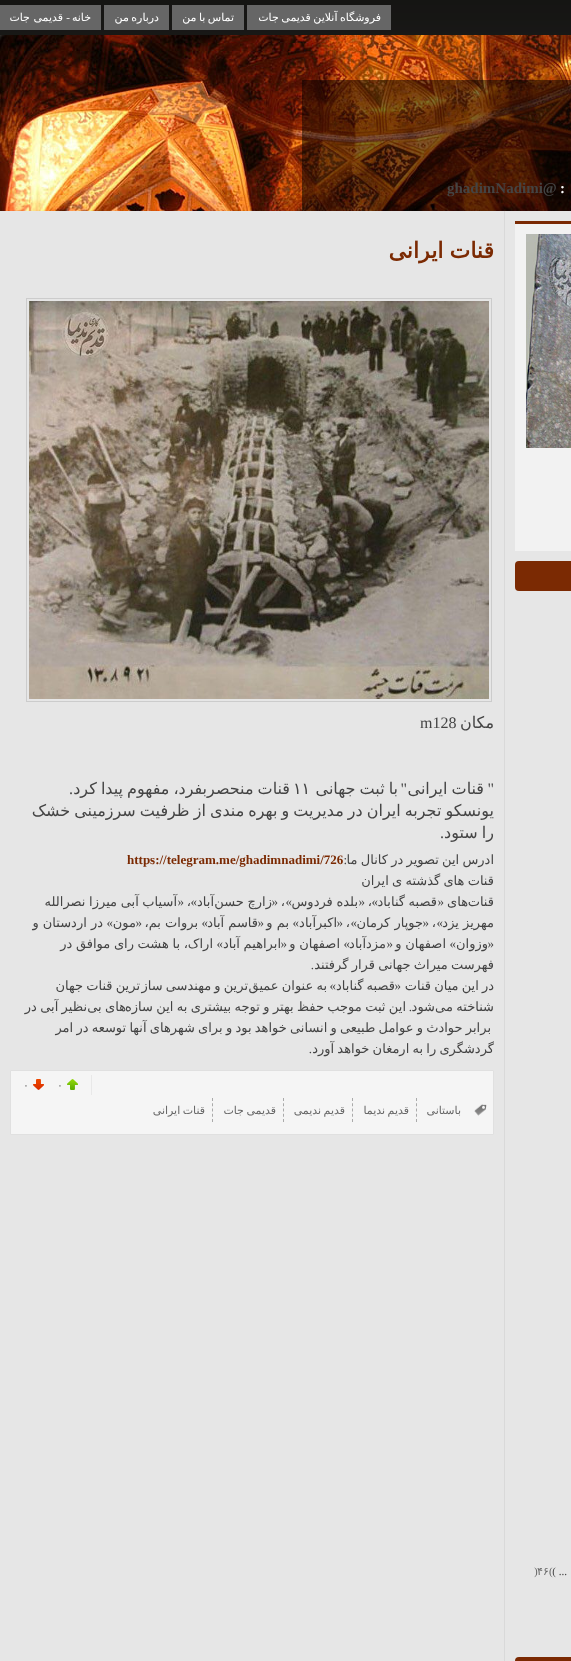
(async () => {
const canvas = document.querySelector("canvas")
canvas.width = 571
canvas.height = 1661
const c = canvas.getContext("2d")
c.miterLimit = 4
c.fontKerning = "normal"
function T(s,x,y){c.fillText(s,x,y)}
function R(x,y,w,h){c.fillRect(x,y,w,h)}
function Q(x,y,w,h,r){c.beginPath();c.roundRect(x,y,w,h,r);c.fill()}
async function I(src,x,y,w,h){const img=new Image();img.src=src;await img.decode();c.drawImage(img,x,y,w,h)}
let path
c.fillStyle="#fff"
R(0,0,571,1661)
await I("1.png",0,0,571,35)
c.fillStyle="#666"
R(247,5,144,25)
c.wordSpacing="-1px"
c.direction="rtl"
c.font="11px DejaVu Sans"
c.fillStyle="#fff"
T("فروشگاه آنلاین قدیمی جات",381,21)
c.fillStyle="#666"
R(172,5,72,25)
c.fillStyle="#fff"
T("تماس با من",234,21)
c.fillStyle="#666"
R(104,5,65,25)
c.fillStyle="#fff"
T("درباره من",159,21)
c.fillStyle="#666"
R(0,5,101,25)
c.wordSpacing="0px"
c.fillStyle="#fff"
T("خانه",91,21)
c.font="11px Liberation Serif"
T("-",70,21)
c.font="11px DejaVu Sans"
T("قدیمی جات",63,21)
await I("2.png",0,35,571,176)
c.fillStyle="#00000080"
R(302,80,269,131)
c.font="bold 15px Liberation Serif"
c.fillStyle="#fff"
T(":",565,193)
c.direction="ltr"
c.fillStyle="#444"
T("ghadimNadimi@",447,193)
c.fillStyle="#e6e6e6"
R(0,211,571,1450)
c.fillStyle="#d9d9d9"
R(504,211,1,1450)
c.wordSpacing="-1px"
c.direction="rtl"
c.font="bold 22px DejaVu Sans"
c.fillStyle="#7b2a03"
T("قنات ایرانی",494,258)
c.strokeStyle="#ccc"
c.strokeRect(26.5,298.5,465,403)
await I("3.png",29,301,460,398)
c.wordSpacing="0px"
c.font="16px DejaVu Sans"
c.fillStyle="#444"
T("مکان",494,728)
c.direction="ltr"
c.font="16px Liberation Serif"
T("m128",420,728)
c.direction="rtl"
T("\"",494,794)
c.wordSpacing="-1px"
c.font="16px DejaVu Sans"
T("قنات ایرانی",484,794)
c.wordSpacing="0px"
c.font="16px Liberation Serif"
T("\"",407,794)
c.wordSpacing="-1px"
c.font="16px DejaVu Sans"
T("با ثبت جهانی",398,794)
c.wordSpacing="0px"
c.direction="ltr"
T("١١",293,794)
c.wordSpacing="-1px"
c.direction="rtl"
T("قنات منحصربفرد، مفهوم پیدا کرد",290,794)
c.wordSpacing="0px"
c.font="16px Liberation Serif"
T(".",73,794)
c.save()
c.beginPath()
c.rect(24,287,470,773)
c.clip()
c.wordSpacing="-1px"
c.font="16px DejaVu Sans"
T("یونسکو تجربه ایران در مدیریت و بهره مندی از ظرفیت سرزمینی خشک",494,816)
c.restore()
c.wordSpacing="-1px"
c.font="16px DejaVu Sans"
T("را ستود",494,838)
c.wordSpacing="0px"
c.font="16px Liberation Serif"
T(".",444,838)
c.save()
c.beginPath()
c.rect(24,287,470,773)
c.clip()
c.wordSpacing="-0.9px"
c.font="13px DejaVu Sans"
T("ادرس این تصویر در کانال ما",494,864)
c.restore()
c.font="13px Liberation Serif"
T(":",347,864)
c.direction="ltr"
c.font="bold 13px Liberation Serif"
c.fillStyle="#7b2a03"
T("https://telegram.me/ghadimnadimi/726",127,864)
c.save()
c.beginPath()
c.rect(24,287,470,773)
c.clip()
c.wordSpacing="-0.9px"
c.direction="rtl"
c.font="13px DejaVu Sans"
c.fillStyle="#444"
T("قنات های گذشته ی ایران",494,885)
c.restore()
c.direction="rtl"
c.font="13px DejaVu Sans"
c.fillStyle="#444"
T("قنات",494,906)
T("های",468,906)
c.font="13px Liberation Serif"
T("«",444,906)
c.wordSpacing="-0.5px"
c.font="13px DejaVu Sans"
T("قصبه گناباد",437,906)
c.wordSpacing="0px"
c.font="13px Liberation Serif"
T("»",378,906)
c.font="13px DejaVu Sans"
T("،",372,906)
c.font="13px Liberation Serif"
T("«",365,906)
c.wordSpacing="-0.5px"
c.font="13px DejaVu Sans"
T("بلده فردوس",358,906)
c.wordSpacing="0px"
c.font="13px Liberation Serif"
T("»",292,906)
c.font="13px DejaVu Sans"
T("،",285,906)
c.font="13px Liberation Serif"
T("«",278,906)
c.font="13px DejaVu Sans"
T("آباد",214,906)
c.wordSpacing="-0.5px"
T("زارچ حسن",272,906)
c.wordSpacing="0px"
c.font="13px Liberation Serif"
T("»",197,906)
c.font="13px DejaVu Sans"
T("،",191,906)
c.wordSpacing="-0.5px"
T("آسیاب آبی میرزا نصرالله",177,906)
c.wordSpacing="0px"
c.font="13px Liberation Serif"
T("«",184,906)
c.font="13px DejaVu Sans"
T("مهریز یزد",494,927)
c.font="13px Liberation Serif"
T("»",443,927)
c.font="13px DejaVu Sans"
T("،",436,927)
c.font="13px Liberation Serif"
T("«",429,927)
c.font="13px DejaVu Sans"
T("جوپار کرمان",423,927)
c.font="13px Liberation Serif"
T("»",357,927)
c.font="13px DejaVu Sans"
T("،",350,927)
c.font="13px Liberation Serif"
T("«",343,927)
c.font="13px DejaVu Sans"
T("اکبرآباد",337,927)
c.font="13px Liberation Serif"
T("»",299,927)
c.font="13px DejaVu Sans"
T("بم و",289,927)
c.font="13px Liberation Serif"
T("«",264,927)
c.font="13px DejaVu Sans"
T("قاسم آباد",258,927)
c.font="13px Liberation Serif"
T("»",208,927)
c.font="13px DejaVu Sans"
T("بروات بم،",198,927)
c.font="13px Liberation Serif"
T("«",142,927)
c.font="13px DejaVu Sans"
T("مون",136,927)
c.font="13px Liberation Serif"
T("»",113,927)
c.font="13px DejaVu Sans"
T("در اردستان و",103,927)
c.font="13px Liberation Serif"
T("«",494,948)
c.font="13px DejaVu Sans"
T("وزوان",488,948)
c.font="13px Liberation Serif"
T("»",456,948)
c.wordSpacing="-0.5px"
c.font="13px DejaVu Sans"
T("اصفهان و",446,948)
c.wordSpacing="0px"
c.font="13px Liberation Serif"
T("«",393,948)
c.font="13px DejaVu Sans"
T("مزدآباد",386,948)
c.font="13px Liberation Serif"
T("»",350,948)
c.wordSpacing="-0.5px"
c.font="13px DejaVu Sans"
T("اصفهان و",340,948)
c.wordSpacing="0px"
c.font="13px Liberation Serif"
T("«",287,948)
c.wordSpacing="-0.5px"
c.font="13px DejaVu Sans"
T("ابراهیم آباد",281,948)
c.wordSpacing="0px"
c.font="13px Liberation Serif"
T("»",223,948)
c.wordSpacing="-0.5px"
c.font="13px DejaVu Sans"
T("اراک، با هشت رای موافق در",213,948)
c.save()
c.beginPath()
c.rect(24,287,470,773)
c.clip()
c.wordSpacing="-0.9px"
T("فهرست میراث جهانی قرار گرفتند",494,969)
c.restore()
c.wordSpacing="0px"
c.font="13px Liberation Serif"
T(".",314,969)
c.save()
c.beginPath()
c.rect(24,287,470,773)
c.clip()
c.wordSpacing="-1px"
c.font="13px DejaVu Sans"
T("در این میان قنات",494,990)
c.restore()
T("«",401,990)
c.wordSpacing="-1px"
c.font="13px DejaVu Sans"
T("قصبه گناباد",395,990)
c.wordSpacing="0px"
c.font="13px Liberation Serif"
T("»",336,990)
c.wordSpacing="-1px"
c.font="13px DejaVu Sans"
T("ترین قنات جهان",140,990)
T("ترین و مهندسی ساز",248,990)
T("به عنوان عمیق",327,990)
c.wordSpacing="-0.75px"
T("شناخته می",494,1011)
T("این ثبت موجب حفظ بهتر و توجه بیشتری به این سازه",406,1011)
c.wordSpacing="0px"
T("شود",435,1011)
c.wordSpacing="-0.75px"
T("نظیر آبی در",87,1011)
T("های بی",126,1011)
c.wordSpacing="0px"
c.font="13px Liberation Serif"
T(".",412,1011)
c.save()
c.beginPath()
c.rect(24,287,470,773)
c.clip()
c.wordSpacing="-0.9px"
c.font="13px DejaVu Sans"
T("برابر حوادث و عوامل طبیعی و انسانی خواهد بود و برای شهرهای آنها توسعه در امر",491,1032)
T("گردشگری را به ارمغان خواهد آورد",494,1053)
c.restore()
T(".",312,1053)
c.fillStyle="#f5f5f5"
c.beginPath()
c.rect(10.5,1070.5,483,64)
c.fill()
c.strokeStyle="#e0e0e0"
c.stroke()
c.fillStyle="#e8e8e8"
R(91,1075,1,20)
await I("4.png",67,1079,11,11)
c.direction="ltr"
c.font="11px DejaVu Sans"
c.fillStyle="#666"
T("۰",57,1089)
await I("5.png",33,1079,11,11)
T("۰",23,1089)
await I("6.png",474,1104,13,12)
c.direction="rtl"
T("باستانی",461,1114)
path = new Path2D("M416.5 1098v24")
c.strokeStyle="#aaa"
c.setLineDash([3,2.25])
c.stroke(path)
c.wordSpacing="-1px"
T("قدیم ندیما",409,1114)
path = new Path2D("M352.5 1098v24")
c.stroke(path)
T("قدیم ندیمی",345,1114)
path = new Path2D("M283.5 1098v24")
c.stroke(path)
T("قدیمی جات",276,1114)
path = new Path2D("M212.5 1098v24")
c.stroke(path)
T("قنات ایرانی",205,1114)
c.fillStyle="#f2f2f2"
R(515,224,56,327)
c.fillStyle="#7b2a03"
R(515,221,56,3)
await I("7.png",526,234,45,214)
Q(515,561,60,30,4)
c.wordSpacing="0px"
c.font="11px Liberation Serif"
c.fillStyle="#444"
T("... )",567,1575)
c.direction="ltr"
c.fillStyle="#666"
T("(",549,1575)
c.font="11px DejaVu Sans"
T("۴۶",537,1575)
c.font="11px Liberation Serif"
T(")",534,1575)
c.fillStyle="#7b2a03"
Q(515,1657,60,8,4)
})()
